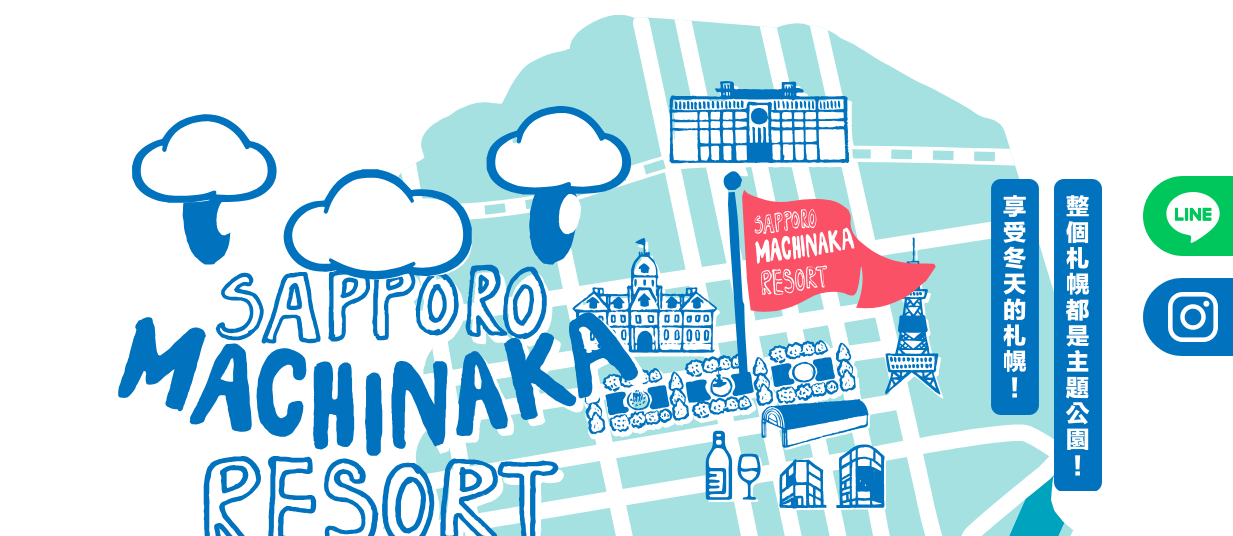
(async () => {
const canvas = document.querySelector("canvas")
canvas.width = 1233
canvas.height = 536
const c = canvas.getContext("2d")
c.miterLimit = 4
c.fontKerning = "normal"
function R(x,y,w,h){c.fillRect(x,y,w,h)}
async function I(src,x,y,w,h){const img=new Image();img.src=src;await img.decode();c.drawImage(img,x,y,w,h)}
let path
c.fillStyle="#fff"
R(0,0,1233,536)
await I("1.png",382,15,698,521)
await I("2.png",118,106,528,430)
await I("3.png",991,179,48,236)
await I("4.png",1054,179,48,312)
c.fillStyle="#00c75c"
path = new Path2D("M1183 176h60v80h-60c-22 0-40-18-40-40c0-22 18-40 40-40z")
c.fill(path)
await I("5.png",1153,192,67,51)
c.fillStyle="#0072be"
path = new Path2D("M1182 278h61v78h-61c-21.5 0-39-17.5-39-39c0-21.5 17.5-39 39-39z")
c.fill(path)
await I("6.png",1168,292,50,50)
})()
